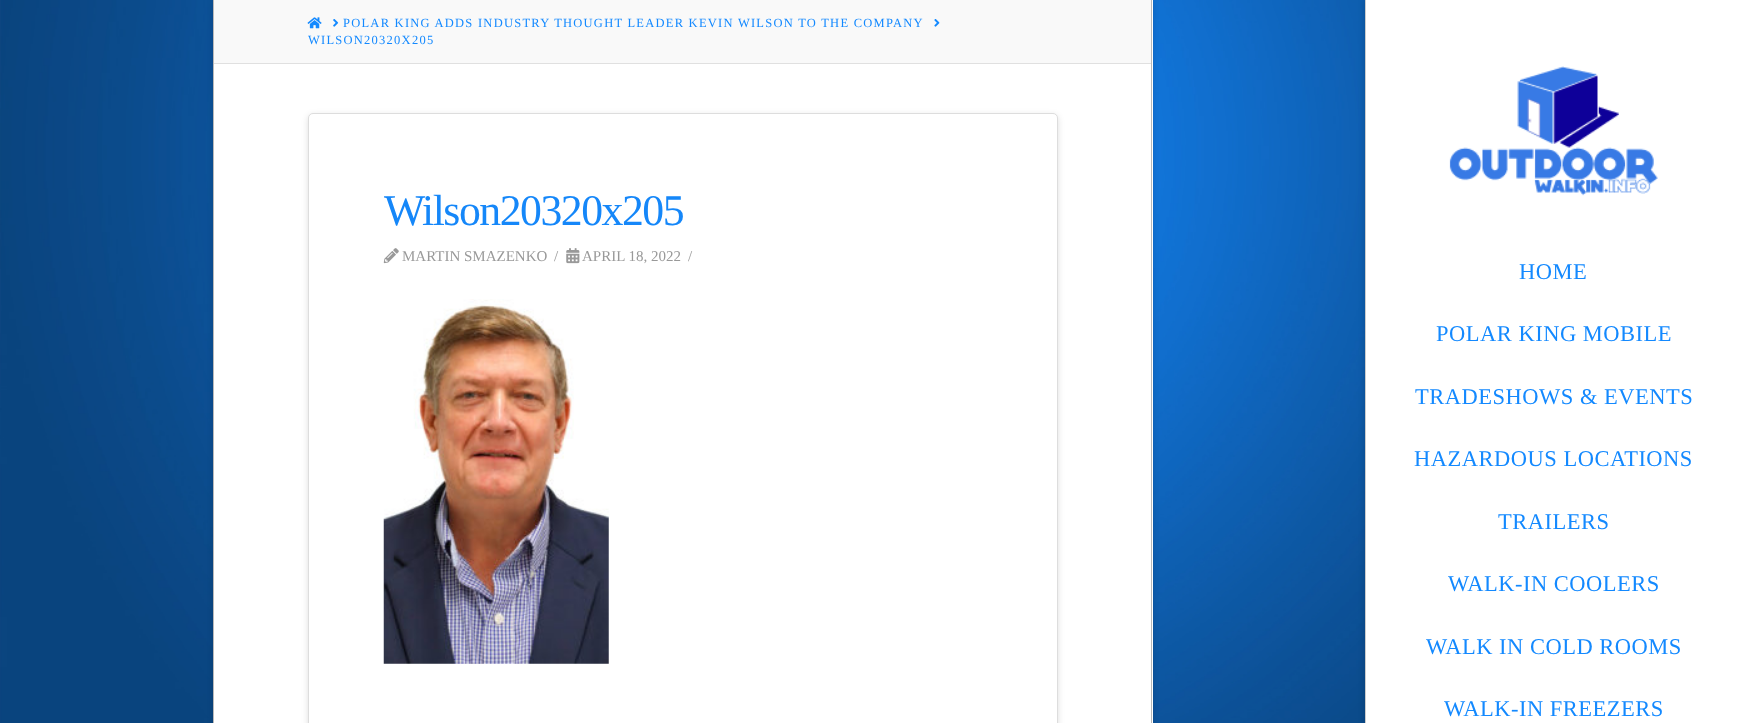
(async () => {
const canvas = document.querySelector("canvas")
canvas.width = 1739
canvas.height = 723
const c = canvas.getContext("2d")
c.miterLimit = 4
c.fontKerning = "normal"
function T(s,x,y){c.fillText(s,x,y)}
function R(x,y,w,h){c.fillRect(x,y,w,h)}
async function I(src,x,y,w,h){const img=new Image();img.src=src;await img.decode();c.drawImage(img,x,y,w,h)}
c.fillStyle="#fff"
R(0,0,1739,723)
await I("1.png",0,0,1365,723)
c.fillStyle="#0000001f"
c.filter="blur(3px)"
c.beginPath()
c.rect(213,0,940,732)
c.fill()
c.filter="none"
c.fillStyle="#fff"
R(214,0,939,723)
c.fillStyle="#b9b9b9"
R(1151,0,1,723)
R(213,0,1,723)
c.fillStyle="#f9f9f9"
R(214,0,937,63)
c.fillStyle="#e0e0e0"
R(214,63,937,1)
await I("2.png",307,17,15,12)
await I("3.png",333,19,6,8)
c.letterSpacing="1.25px"
c.font="12.5px Liberation Serif"
c.fillStyle="#1389ff"
T("POLAR KING ADDS INDUSTRY THOUGHT LEADER KEVIN WILSON TO THE COMPANY",343,27)
await I("4.png",934,19,6,8)
T("WILSON20320X205",308,44)
c.fillStyle="#0000001a"
c.filter="blur(2.5px)"
c.beginPath()
c.rect(1363,0,375,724)
c.fill()
c.filter="none"
c.fillStyle="#fff"
R(1366,0,373,723)
c.fillStyle="#ccc"
R(1365,0,1,723)
await I("5.png",1449,66,209,130)
c.letterSpacing="0.5px"
c.font="22.5px Liberation Serif"
c.fillStyle="#1389ff"
T("HOME",1519,279)
T("POLAR KING MOBILE",1436,341)
T("TRADESHOWS & EVENTS",1415,404)
T("HAZARDOUS LOCATIONS",1414,466)
T("TRAILERS",1498,529)
T("WALK-IN COOLERS",1448,591)
T("WALK IN COLD ROOMS",1426,654)
T("WALK-IN FREEZERS",1444,716)
c.fillStyle="#00000021"
c.filter="blur(3px)"
c.beginPath()
c.roundRect(308,115,750,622,5)
c.fill()
c.filter="none"
c.fillStyle="#fff"
c.beginPath()
c.roundRect(308.5,113.5,749,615,4.5)
c.fill()
c.strokeStyle="#ddd"
c.stroke()
c.letterSpacing="-1.5px"
c.font="43.75px Liberation Serif"
c.fillStyle="#1587f9"
T("Wilson20320x205",384,225)
await I("6.png",383,248,16,16)
c.letterSpacing="0px"
c.font="15px Liberation Serif"
c.fillStyle="#999"
T("MARTIN SMAZENKO",402,261)
T("/",554,261)
await I("7.png",566,248,14,16)
T("APRIL 18, 2022",582,261)
T("/",688,261)
await I("8.png",383,299,226,365)
})()
